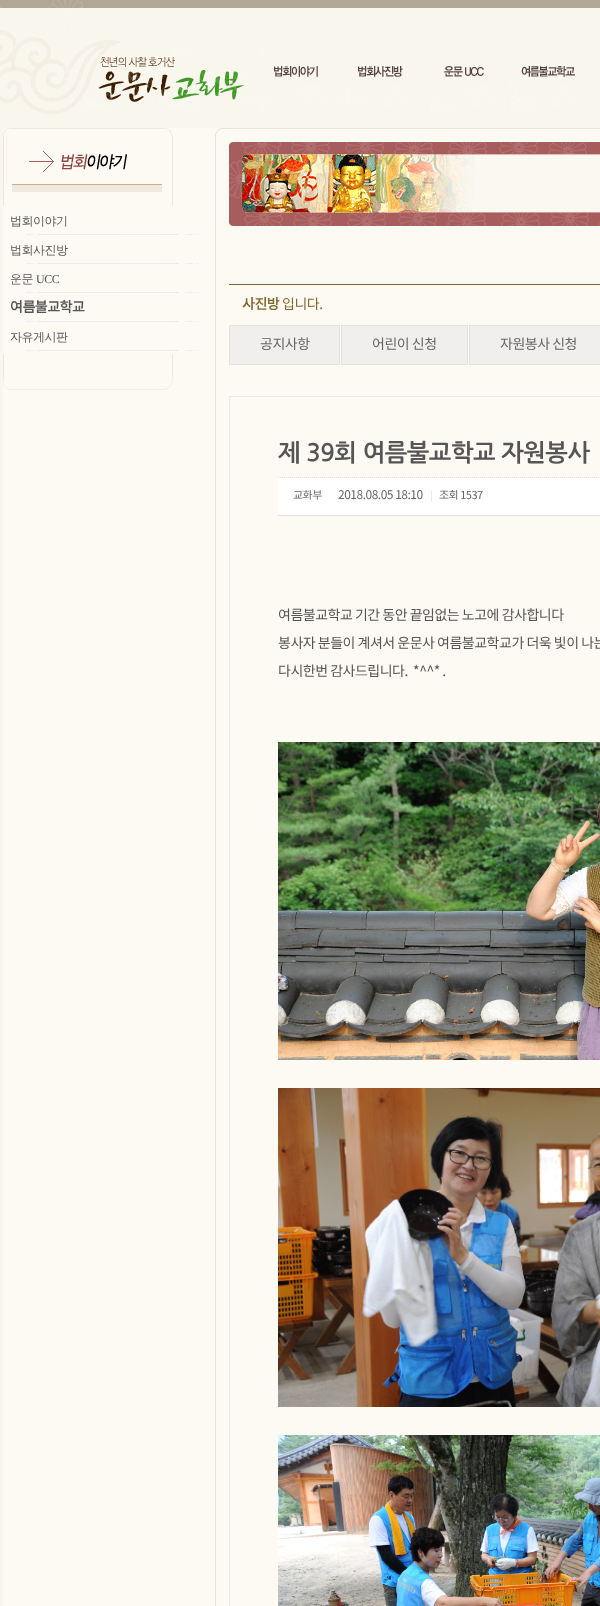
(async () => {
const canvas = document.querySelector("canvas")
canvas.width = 600
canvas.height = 1606
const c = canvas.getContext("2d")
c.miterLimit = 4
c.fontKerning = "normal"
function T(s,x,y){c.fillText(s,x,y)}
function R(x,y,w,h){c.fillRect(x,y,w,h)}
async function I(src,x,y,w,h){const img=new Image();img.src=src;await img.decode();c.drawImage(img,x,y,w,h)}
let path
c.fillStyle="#fff"
R(0,0,600,1606)
await I("5.png",0,0,600,128)
await I("7.png",265,77,82,27)
await I("1.png",274,66,56,19)
await I("2.png",347,66,68,40)
await I("13.png",229,128,371,98)
await I("3.png",431,66,75,63)
await I("4.png",509,66,66,63)
c.fillStyle="#fbf9f2"
R(599,104,1,2)
await I("6.png",0,0,264,114)
c.fillStyle="#f9f6ed"
R(0,128,3,1478)
c.fillStyle="#fdfaf3"
R(3,128,199,1478)
await I("8.png",3,128,170,77)
c.letterSpacing="-0.5px"
c.font="500 12px WenQuanYi Zen Hei"
c.fillStyle="#555"
T("법회이야기",10,225)
await I("9.png",27,234,175,1)
T("법회사진방",10,254)
await I("9.png",27,263,175,1)
T("운문",10,283)
c.font="12px Liberation Serif"
T("UCC",36,283)
await I("9.png",27,292,175,1)
c.font="bold 14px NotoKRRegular"
T("여름불교학교",10,312)
await I("9.png",27,321,175,1)
c.font="500 12px WenQuanYi Zen Hei"
T("자유게시판",10,341)
await I("9.png",27,350,175,1)
await I("10.png",3,354,170,36)
await I("11.png",202,128,27,1478)
await I("12.png",215,128,14,6)
c.fillStyle="#fdfaf3"
R(229,226,371,1380)
c.fillStyle="#84652d"
R(229,284,371,1)
c.font="bold 14px NotoKRRegular"
T("사진방",242,309)
c.font="14px NotoKRRegular"
T("입니다.",282,309)
c.fillStyle="#f1efed"
c.beginPath()
c.rect(229.5,325.5,110,39)
c.fill()
c.strokeStyle="#e5e0db"
c.stroke()
c.fillStyle="#666"
T("공지사항",260,349)
c.fillStyle="#f1efed"
c.beginPath()
c.rect(341.5,325.5,126,39)
c.fill()
c.stroke()
c.fillStyle="#666"
T("어린이 신청",372,349)
c.fillStyle="#f1efed"
c.beginPath()
c.rect(469.5,325.5,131,39)
c.fill()
c.stroke()
c.fillStyle="#666"
T("자원봉사 신청",500,349)
c.strokeStyle="#e9e9e9"
c.strokeRect(229.5,396.5,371,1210)
path = new Path2D("M278 477.5h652")
c.strokeStyle="#dedede"
c.setLineDash([1,1])
c.stroke(path)
c.font="bold 24px NanumGothic"
c.fillStyle="#555"
T("제 39회 여름불교학교 자원봉사",278,460)
c.fillStyle="#fff"
R(278,478,322,37)
c.fillStyle="#dedede"
R(278,515,322,1)
c.font="11px NotoKRRegular"
c.fillStyle="#666"
T("교화부",293,499)
c.font="12px NotoKRRegular"
T("2018.08.05 18:10",338,499)
c.font="10px NotoKRRegular"
c.fillStyle="#dfdfdf"
T("|",430,499)
c.font="11px NotoKRRegular"
c.fillStyle="#666"
T("조회 1537",439,499)
c.font="14px NotoKRRegular"
c.fillStyle="#555"
T("여름불교학교 기간 동안 끝임없는 노고에 감사합니다",278,620)
T("봉사자 분들이 계셔서 운문사 여름불교학교가 더욱 빛이 나는",278,648)
T("다시한번 감사드립니다.  *^^* .",278,676)
await I("14.png",278,742,322,318)
await I("15.png",278,1088,322,319)
await I("16.png",278,1435,322,171)
})()
